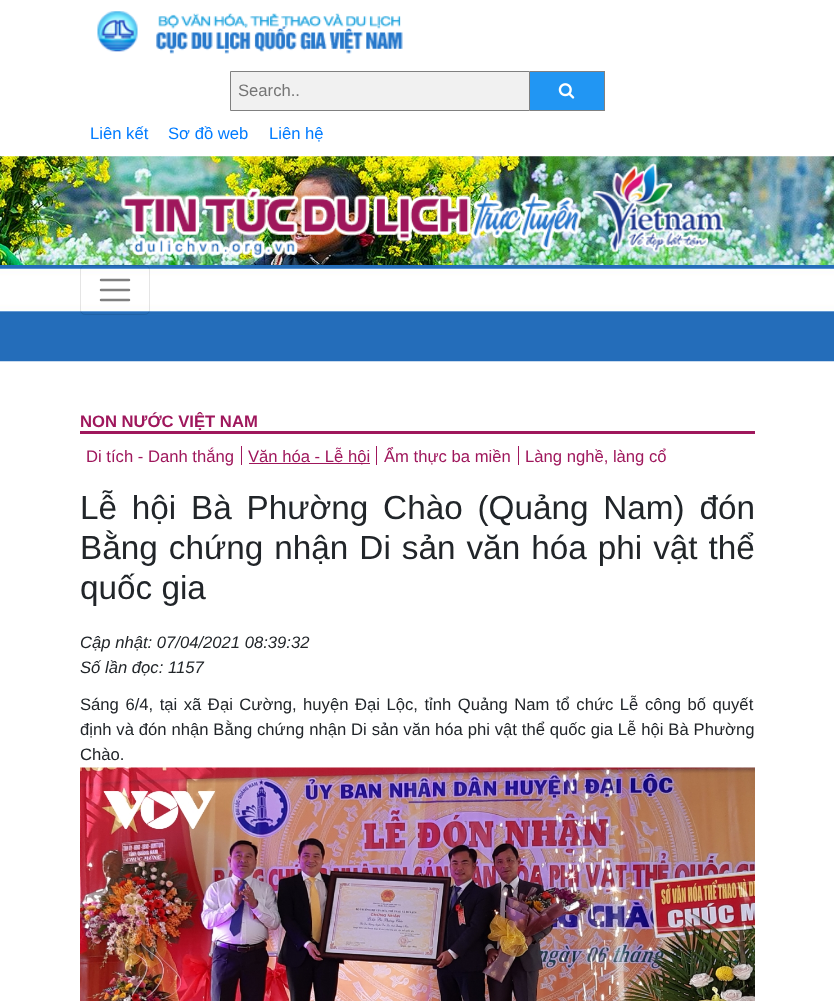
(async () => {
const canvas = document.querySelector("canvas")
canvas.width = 834
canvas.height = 1001
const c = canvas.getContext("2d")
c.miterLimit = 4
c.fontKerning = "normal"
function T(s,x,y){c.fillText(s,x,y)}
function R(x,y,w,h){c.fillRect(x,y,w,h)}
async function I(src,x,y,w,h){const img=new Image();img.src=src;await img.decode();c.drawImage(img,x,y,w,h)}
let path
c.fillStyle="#fff"
R(0,0,834,1001)
await I("1.png",97,11,306,43)
c.fillStyle="#f1f1f1"
c.beginPath()
c.rect(230.5,71.5,299,39)
c.fill()
c.strokeStyle="#808080"
c.stroke()
c.font="16.65px Liberation Sans"
c.fillStyle="#757575"
T("Search..",238,96)
c.fillStyle="#2196f3"
R(530,72,74,38)
c.fillStyle="#808080"
R(530,71,75,1)
R(604,71,1,40)
R(530,110,75,1)
await I("2.png",558,83,17,16)
c.fillStyle="#007bff"
T("Liên kết",90,139)
T("Sơ đồ web",168,139)
T("Liên hệ",269,139)
await I("3.png",0,156,834,109)
await I("4.png",121,163,604,96)
await I("5.png",0,265,834,97)
c.beginPath()
c.roundRect(80.5,265.5,69,49,4.5)
c.strokeStyle="#0000001a"
c.stroke()
path = new Path2D("M101 280h28m-28 10h28m-28 10h28")
c.strokeStyle="#808080"
c.lineWidth=2.5
c.lineCap="round"
c.stroke(path)
c.fillStyle="#9f175c"
R(80,431,675,3)
c.font="bold 16.65px Liberation Sans"
T("NON NƯỚC VIỆT NAM",80,427)
c.font="16.65px Liberation Sans"
T("Di tích - Danh thắng",86,462)
R(249,463,121,1)
T("Văn hóa - Lễ hội",248,462)
R(241,446,1,19)
T("Ẩm thực ba miền",384,462)
R(376,446,1,19)
T("Làng nghề, làng cổ",525,462)
R(518,446,1,19)
c.wordSpacing="5.5px"
c.font="33.3px Liberation Sans"
c.fillStyle="#212529"
T("Lễ hội Bà Phường Chào (Quảng Nam) đón",80,519)
c.wordSpacing="1.75px"
T("Bằng chứng nhận Di sản văn hóa phi vật thể",80,559)
c.wordSpacing="0px"
T("quốc gia",80,599)
c.font="italic 16.65px Liberation Sans"
T("Cập nhật: 07/04/2021 08:39:32",80,648)
T("Số lần đọc: 1157",80,673)
c.wordSpacing="1.9px"
c.font="16.65px Liberation Sans"
T("Sáng 6/4, tại xã Đại Cường, huyện Đại Lộc, tỉnh Quảng Nam tổ chức Lễ công bố quyết",80,710)
c.wordSpacing="0.25px"
T("định và đón nhận Bằng chứng nhận Di sản văn hóa phi vật thể quốc gia Lễ hội Bà Phường",80,735)
c.wordSpacing="0px"
T("Chào.",80,760)
await I("6.png",80,767,675,234)
})()
